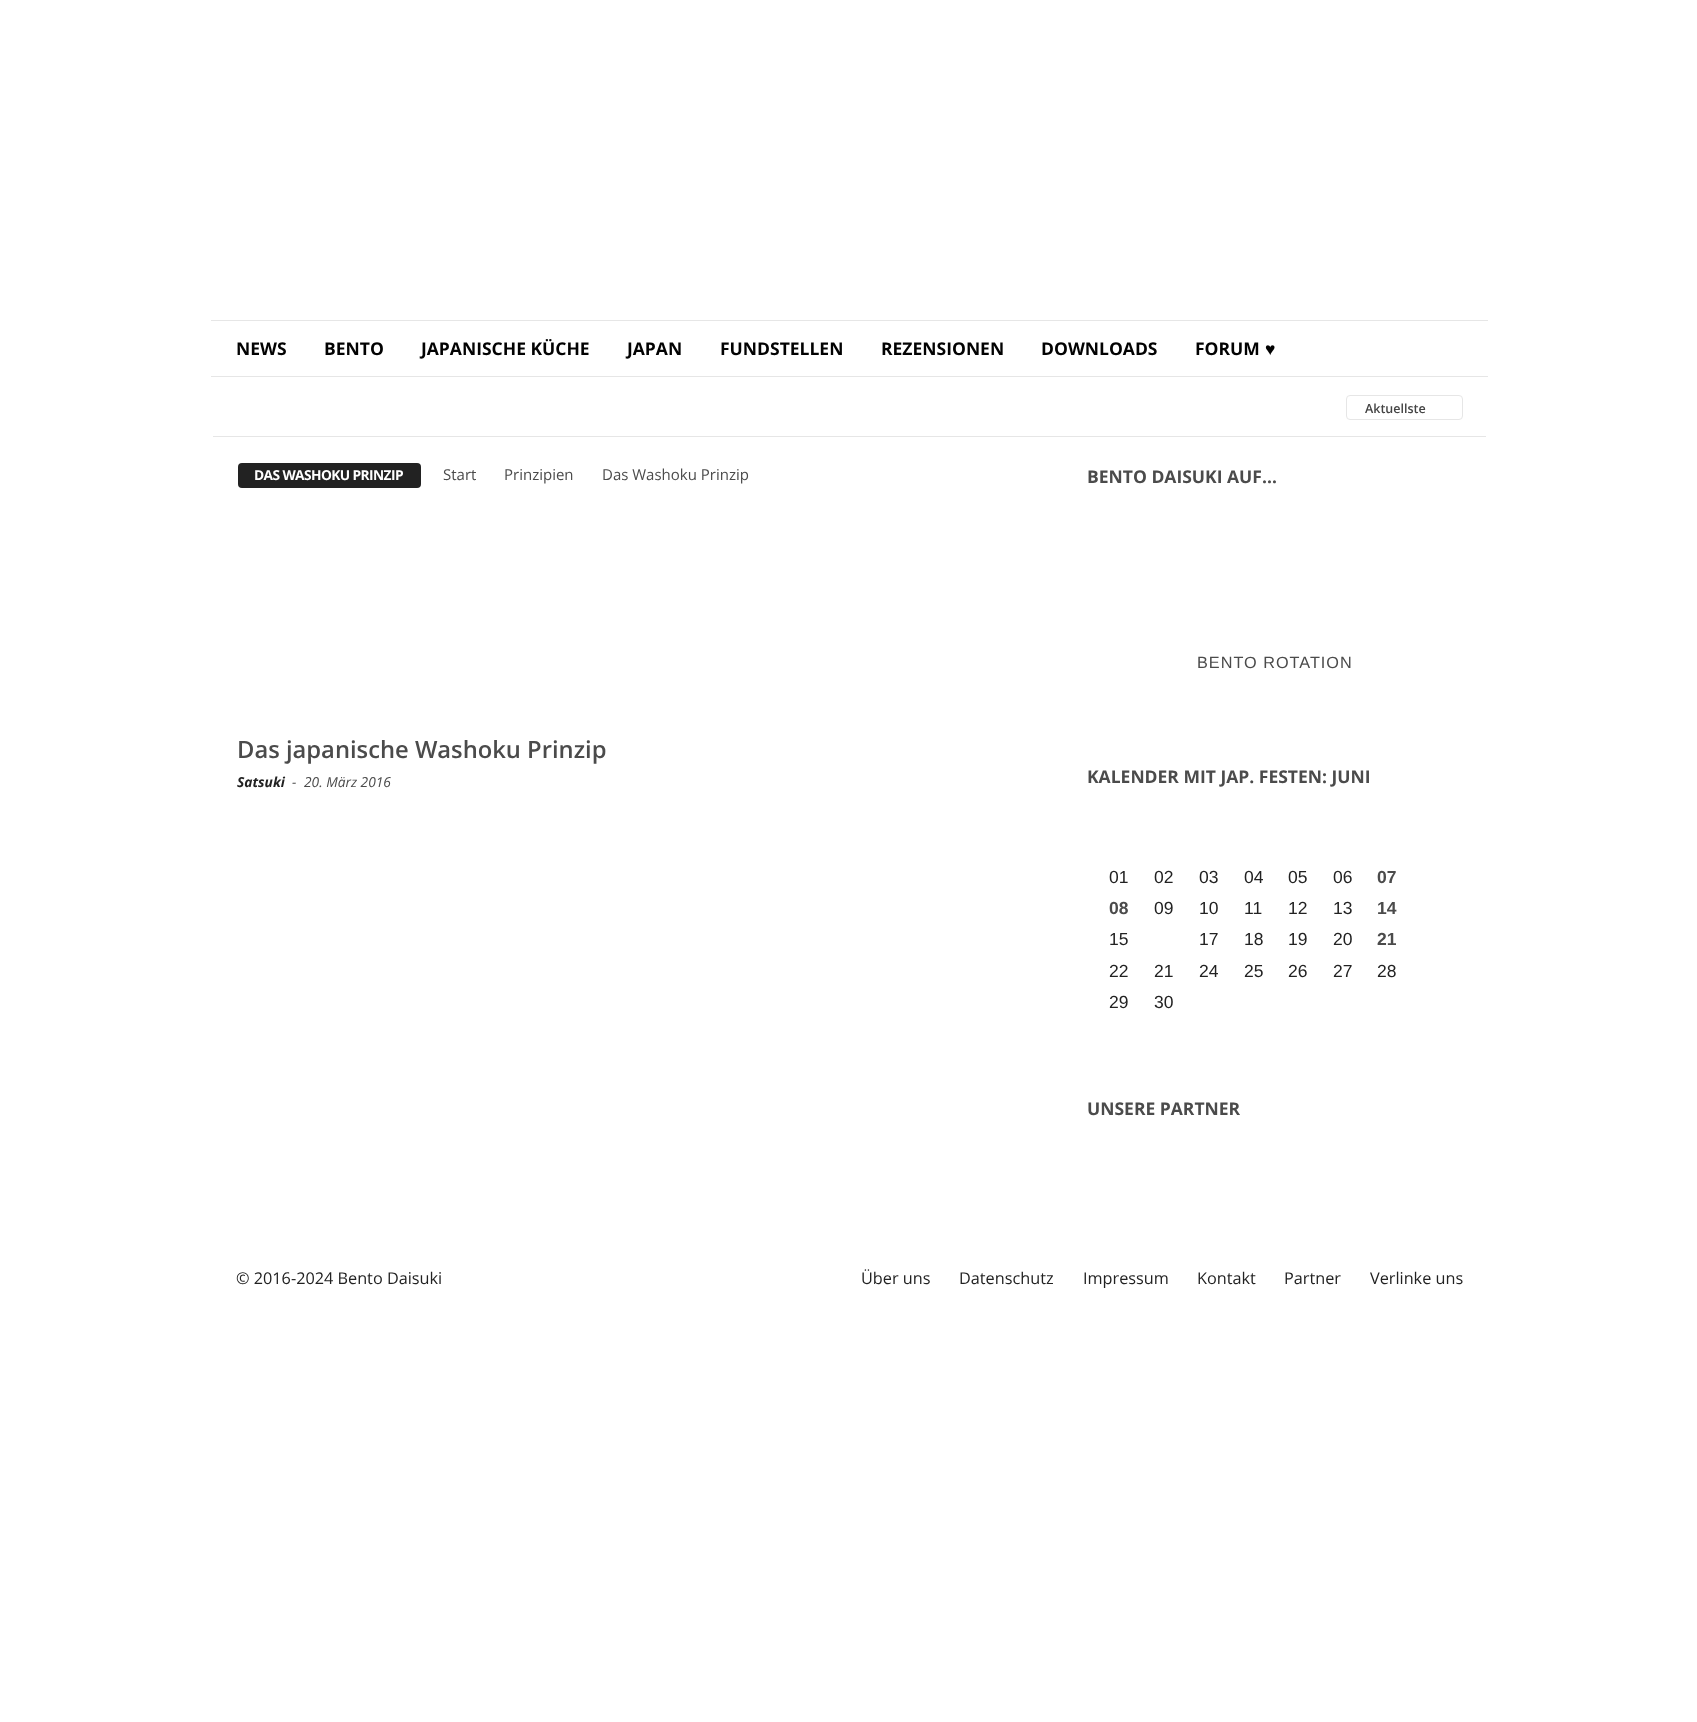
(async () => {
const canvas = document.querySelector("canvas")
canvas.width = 1697
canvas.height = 1722
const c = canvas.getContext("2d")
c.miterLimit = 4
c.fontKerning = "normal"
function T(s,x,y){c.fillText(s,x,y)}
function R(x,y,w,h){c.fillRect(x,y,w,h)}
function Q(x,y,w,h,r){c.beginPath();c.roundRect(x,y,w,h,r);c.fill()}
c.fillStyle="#fff"
R(0,0,1697,1722)
c.fillStyle="#e6e6e6"
R(211,376,1277,1)
R(211,320,1277,1)
c.font="bold 17.5px Open Sans"
c.fillStyle="#020202"
T("NEWS",236,355)
T("BENTO",324,355)
T("JAPANISCHE KÜCHE",421,355)
T("JAPAN",627,355)
T("FUNDSTELLEN",720,355)
T("REZENSIONEN",881,355)
T("DOWNLOADS",1041,355)
T("FORUM",1195,355)
c.font="bold 17.5px Liberation Sans"
T("♥",1265,355)
c.fillStyle="#e6e6e6"
R(213,436,1273,1)
c.beginPath()
c.roundRect(1346.5,395.5,116,24,3.5)
c.strokeStyle="#e6e6e6"
c.stroke()
c.font="600 12.5px Open Sans"
c.fillStyle="#444"
T("Aktuellste",1365,413)
c.fillStyle="#222"
Q(238,463,183,25,4)
c.letterSpacing="-0.6px"
c.font="bold 13.75px Open Sans"
c.fillStyle="#fff"
T("DAS WASHOKU PRINZIP",254,480)
c.letterSpacing="0px"
c.font="15px Open Sans"
c.fillStyle="#4b4b4b"
T("Start",443,480)
T("Prinzipien",504,480)
T("Das Washoku Prinzip",602,480)
c.font="600 23.75px Open Sans"
T("Das japanische Washoku Prinzip",237,758)
c.font="italic bold 13.75px Open Sans"
c.fillStyle="#222"
T("Satsuki",237,787)
c.font="italic 13.75px Open Sans"
c.fillStyle="#4b4b4b"
T("-",292,787)
T("20. März 2016",304,787)
c.font="bold 17.5px Open Sans"
T("BENTO DAISUKI AUF…",1087,483)
c.letterSpacing="1px"
c.font="16.25px Liberation Sans"
T("BENTO ROTATION",1197,668)
c.letterSpacing="0px"
c.font="bold 17.5px Open Sans"
T("KALENDER MIT JAP. FESTEN: JUNI",1087,783)
c.font="17.5px Liberation Sans"
c.fillStyle="#222"
T("01",1109,883)
T("02",1154,883)
T("03",1199,883)
T("04",1244,883)
T("05",1288,883)
T("06",1333,883)
c.font="bold 17.5px Liberation Sans"
c.fillStyle="#4b4b4b"
T("07",1377,883)
T("08",1109,914)
c.font="17.5px Liberation Sans"
c.fillStyle="#222"
T("09",1154,914)
T("10",1199,914)
T("11",1244,914)
T("12",1288,914)
T("13",1333,914)
c.font="bold 17.5px Liberation Sans"
c.fillStyle="#4b4b4b"
T("14",1377,914)
c.font="17.5px Liberation Sans"
c.fillStyle="#222"
T("15",1109,945)
T("17",1199,945)
T("18",1244,945)
T("19",1288,945)
T("20",1333,945)
c.font="bold 17.5px Liberation Sans"
c.fillStyle="#4b4b4b"
T("21",1377,945)
c.font="17.5px Liberation Sans"
c.fillStyle="#222"
T("22",1109,977)
T("21",1154,977)
T("24",1199,977)
T("25",1244,977)
T("26",1288,977)
T("27",1333,977)
T("28",1377,977)
T("29",1109,1008)
T("30",1154,1008)
c.font="bold 17.5px Open Sans"
c.fillStyle="#4b4b4b"
T("UNSERE PARTNER",1087,1115)
c.font="16.25px Open Sans"
c.fillStyle="#222"
T("© 2016-2024 Bento Daisuki",236,1284)
T("Über uns",861,1284)
T("Datenschutz",959,1284)
T("Impressum",1083,1284)
T("Kontakt",1197,1284)
T("Partner",1284,1284)
T("Verlinke uns",1370,1284)
})()
